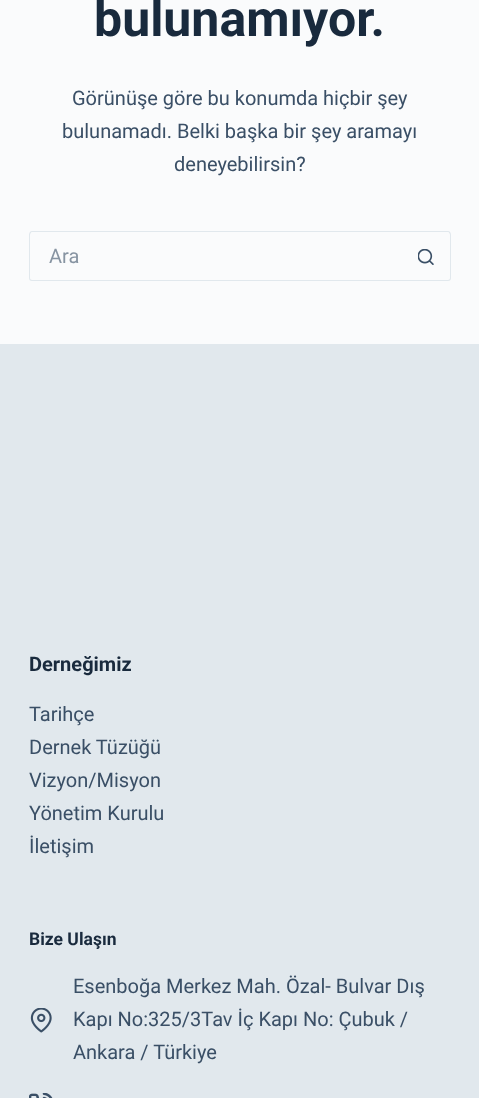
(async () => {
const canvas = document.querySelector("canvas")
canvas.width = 479
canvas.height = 1098
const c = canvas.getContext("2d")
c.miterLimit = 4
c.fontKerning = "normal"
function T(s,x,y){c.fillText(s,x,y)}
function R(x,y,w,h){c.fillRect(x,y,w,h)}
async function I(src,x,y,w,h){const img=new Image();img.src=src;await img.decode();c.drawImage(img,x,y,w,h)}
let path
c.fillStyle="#fafbfc"
R(0,0,479,1098)
c.font="bold 50px Roboto"
c.fillStyle="#192a3d"
T("bulunamıyor.",94,36)
c.font="20px Roboto"
c.fillStyle="#3a4f66"
T("Görünüşe göre bu konumda hiçbir şey",72,105)
T("bulunamadı. Belki başka bir şey aramayı",62,138)
T("deneyebilirsin?",174,171)
c.fillStyle="#e1e8ed"
path = new Path2D("M32 231h369v50h-369c-2 0-3-1-3-3v-43c0-2 1-4 3-4zm0 1h369v48h-369c-1 0-2-1-2-2v-43c0-1 1-3 2-3z")
c.fill(path,"evenodd")
c.fillStyle="#8794a2"
T("Ara",49,263)
c.fillStyle="#e1e8ed"
path = new Path2D("M401 231h47c2 0 3 2 3 4v43c0 2-1 3-3 3h-47zm0 1h47c1 0 2 2 2 3v43c0 1-1 2-2 2h-47z")
c.fill(path,"evenodd")
await I("1.png",418,249,16,16)
R(0,344,479,754)
c.font="bold 20px Roboto"
c.fillStyle="#192a3d"
T("Derneğimiz",29,671)
c.font="20px Roboto"
c.fillStyle="#3a4f66"
T("Tarihçe",29,721)
T("Dernek Tüzüğü",29,754)
T("Vizyon/Misyon",29,787)
T("Yönetim Kurulu",29,820)
T("İletişim",29,853)
c.font="bold 17.5px Roboto"
c.fillStyle="#192a3d"
T("Bize Ulaşın",29,945)
await I("2.png",30,1008,22,25)
c.font="20px Roboto"
c.fillStyle="#3a4f66"
T("Esenboğa Merkez Mah. Özal- Bulvar Dış",73,993)
T("Kapı No:325/3Tav İç Kapı No: Çubuk /",73,1026)
T("Ankara / Türkiye",73,1059)
await I("3.png",29,1093,24,5)
})()
